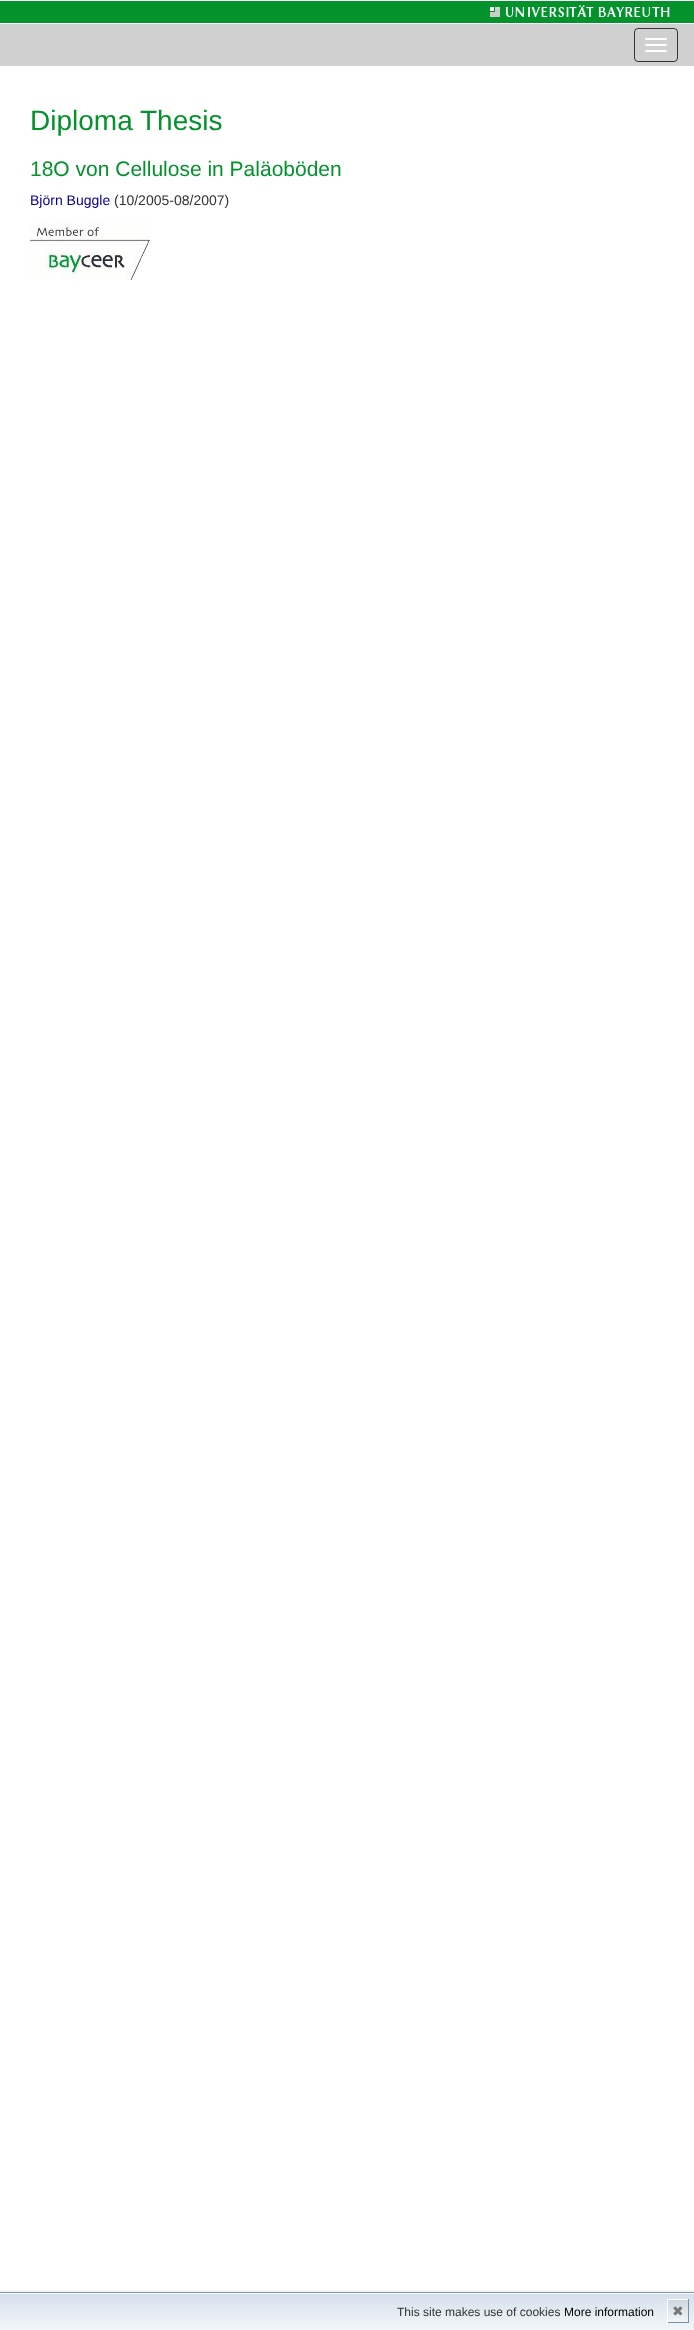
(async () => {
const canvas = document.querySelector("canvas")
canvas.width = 694
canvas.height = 2330
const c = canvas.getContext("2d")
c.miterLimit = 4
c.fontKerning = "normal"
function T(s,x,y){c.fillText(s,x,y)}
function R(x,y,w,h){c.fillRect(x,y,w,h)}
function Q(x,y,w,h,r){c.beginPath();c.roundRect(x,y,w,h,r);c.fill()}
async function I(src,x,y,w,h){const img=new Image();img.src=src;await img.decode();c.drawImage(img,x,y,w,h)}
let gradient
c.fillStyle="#fff"
R(0,0,694,2330)
c.fillStyle="#03922c"
R(0,1,694,22)
await I("1.png",489,0,184,24)
c.fillStyle="#cfd0cf"
R(0,24,694,42)
c.beginPath()
c.roundRect(634.5,28.5,43,33,3.5)
c.strokeStyle="#333"
c.stroke()
c.fillStyle="#fff"
Q(645,38,22,2,1)
Q(645,44,22,2,1)
Q(645,50,22,2,1)
c.font="28px Liberation Sans"
c.fillStyle="#03922c"
T("Diploma Thesis",30,130)
c.font="21px Liberation Sans"
T("18O von Cellulose in Paläoböden",30,176)
c.font="14px Liberation Sans"
c.fillStyle="#060392"
T("Björn Buggle",30,205)
c.fillStyle="#333"
T("(10/2005-08/2007)",114,205)
await I("2.png",30,220,120,60)
c.fillStyle="#f5f5f5"
R(0,2290,694,2)
gradient = c.createLinearGradient(347,2294,347,2330)
gradient.addColorStop(0,"#d6e0eb")
gradient.addColorStop(1,"#f2f6f9")
c.fillStyle = gradient
R(0,2294,694,36)
c.strokeStyle="#7b92a9"
c.strokeRect(-.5,2292.5,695,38)
c.font="12px Liberation Sans"
c.fillStyle="#333"
T("This site makes use of cookies",397,2316)
c.fillStyle="#000"
T("More information",564,2316)
gradient = c.createLinearGradient(678,2300,678,2322)
gradient.addColorStop(0,"#ced6df")
gradient.addColorStop(1,"#f2f6f9")
c.fillStyle = gradient
R(668,2300,20,22)
c.fillStyle="#fff"
R(667,2299,22,1)
c.fillStyle="#7b92a9"
R(688,2299,1,24)
R(667,2322,22,1)
c.fillStyle="#fff"
R(667,2299,1,24)
c.font="14px DejaVu Sans"
c.fillStyle="#777"
T("✖",672,2316)
})()
